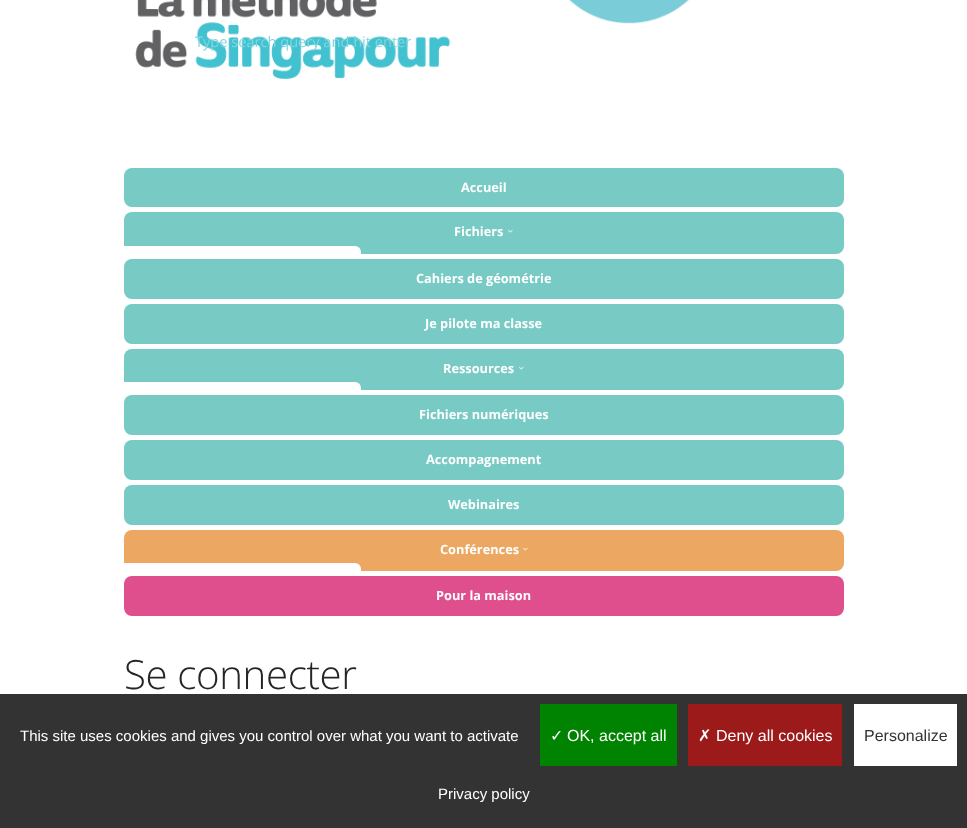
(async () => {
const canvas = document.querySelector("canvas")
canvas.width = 967
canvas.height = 828
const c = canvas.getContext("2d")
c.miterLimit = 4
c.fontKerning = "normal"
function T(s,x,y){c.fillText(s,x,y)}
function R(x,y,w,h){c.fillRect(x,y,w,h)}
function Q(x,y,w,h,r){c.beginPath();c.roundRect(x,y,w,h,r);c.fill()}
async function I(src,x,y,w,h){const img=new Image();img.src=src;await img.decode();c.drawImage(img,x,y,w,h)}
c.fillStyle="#fff"
R(0,0,967,828)
await I("1.png",135,0,554,79)
c.font="14.6px Open Sans"
c.fillStyle="#81d6df"
T("Type search query and hit enter",195,47)
c.fillStyle="#78cac5"
Q(124,168,720,39,8)
c.font="bold 12.75px Open Sans"
c.fillStyle="#fff"
T("Accueil",461,192)
c.fillStyle="#78cac5"
Q(124,212,720,42,8)
c.fillStyle="#fff"
T("Fichiers",454,236)
await I("2.png",508,229,5,4)
Q(111,246,250,383,6)
c.fillStyle="#78cac5"
Q(124,259,720,40,8)
c.fillStyle="#fff"
T("Cahiers de géométrie",416,283)
c.fillStyle="#78cac5"
Q(124,304,720,40,8)
c.fillStyle="#fff"
T("Je pilote ma classe",425,328)
c.fillStyle="#78cac5"
Q(124,349,720,41,8)
c.fillStyle="#fff"
T("Ressources",443,373)
await I("2.png",519,366,5,4)
Q(111,382,250,383,6)
c.fillStyle="#78cac5"
Q(124,395,720,40,8)
c.fillStyle="#fff"
T("Fichiers numériques",419,419)
c.fillStyle="#78cac5"
Q(124,440,720,40,8)
c.fillStyle="#fff"
T("Accompagnement",426,464)
c.fillStyle="#78cac5"
Q(124,485,720,40,8)
c.fillStyle="#fff"
T("Webinaires",448,509)
c.fillStyle="#eca862"
Q(124,530,720,41,8)
c.fillStyle="#fff"
T("Conférences",440,554)
await I("3.png",523,547,5,4)
Q(111,563,250,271,6)
c.fillStyle="#df4f8d"
Q(124,576,720,40,8)
c.fillStyle="#fff"
T("Pour la maison",436,600)
c.letterSpacing="-0.4px"
c.font="300 40.25px Open Sans"
c.fillStyle="#252525"
T("Se connecter",124,689)
c.fillStyle="#333"
R(0,694,967,134)
c.letterSpacing="0px"
c.font="15px Liberation Sans"
c.fillStyle="#fff"
T("This site uses cookies and gives you control over what you want to activate",20,741)
c.fillStyle="#008300"
R(540,704,137,62)
c.font="16px DejaVu Sans"
c.fillStyle="#fff"
T("✓",550,741)
c.font="16px Liberation Sans"
T("OK, accept all",567,741)
c.fillStyle="#9c1a1a"
R(688,704,154,62)
c.font="16px DejaVu Sans"
c.fillStyle="#fff"
T("✗",698,741)
c.font="16px Liberation Sans"
T("Deny all cookies",716,741)
R(854,704,103,62)
c.fillStyle="#333"
T("Personalize",864,741)
c.font="15px Liberation Sans"
c.fillStyle="#fff"
T("Privacy policy",438,799)
})()
